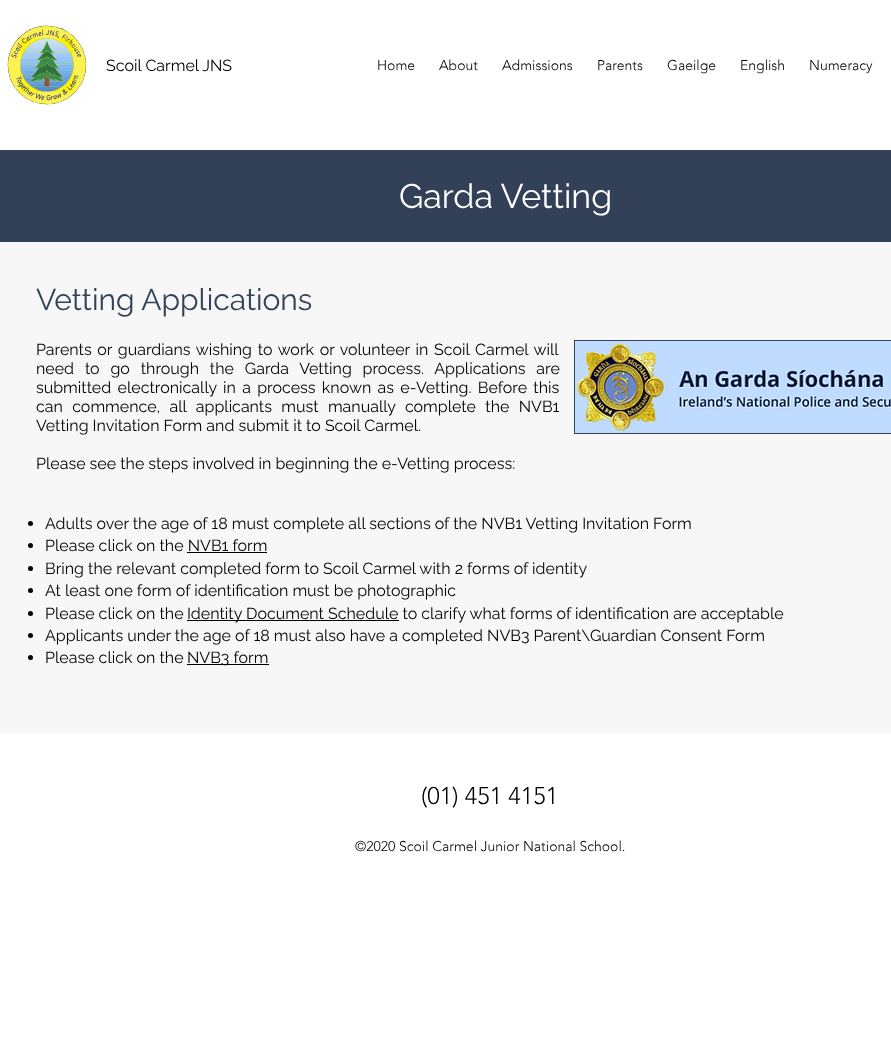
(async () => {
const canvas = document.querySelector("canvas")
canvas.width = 891
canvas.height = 1041
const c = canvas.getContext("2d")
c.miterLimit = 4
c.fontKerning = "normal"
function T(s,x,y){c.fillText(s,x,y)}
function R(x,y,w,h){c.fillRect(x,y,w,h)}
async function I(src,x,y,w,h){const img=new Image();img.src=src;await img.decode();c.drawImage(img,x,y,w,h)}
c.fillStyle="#fff"
R(0,0,891,1041)
await I("1.png",7,25,80,80)
c.font="16px Raleway"
c.fillStyle="#000"
T("Scoil Carmel JNS",106,71)
c.font="300 14px 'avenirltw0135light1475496'"
T("Home",377,70)
T("About",439,70)
T("Admissions",502,70)
T("Parents",597,70)
T("Gaeilge",667,70)
T("English",740,70)
T("Numeracy",809,70)
c.fillStyle="#324158"
R(0,150,891,92)
c.font="34px Raleway"
c.fillStyle="#fff"
T("Garda Vetting",399,208)
c.fillStyle="#f7f7f7"
R(0,242,891,491)
c.font="30px Raleway"
c.fillStyle="#324158"
T("Vetting Applications",36,310)
c.wordSpacing="1.6px"
c.font="16px Raleway"
c.fillStyle="#000"
T("Parents or guardians wishing to work or volunteer in Scoil Carmel will",36,355)
c.wordSpacing="6.75px"
T("need to go through the Garda Vetting process. Applications are",36,374)
c.wordSpacing="2.25px"
T("submitted electronically in a process known as e-Vetting. Before this",36,393)
c.wordSpacing="5.25px"
T("can commence, all applicants must manually complete the NVB1",36,412)
c.wordSpacing="0px"
T("Vetting Invitation Form and submit it to Scoil Carmel.",36,431)
T("Please see the steps involved in beginning the e-Vetting process:",36,469)
c.fillStyle="#324158"
R(574,340,317,94)
await I("2.png",575,341,316,92)
c.fillStyle="#000"
c.beginPath()
c.arc(30.5,523.5,2.5,0,7)
c.fill()
T("Adults over the age of 18 must complete all sections of the NVB1 Vetting Invitation Form",45,529)
c.beginPath()
c.arc(30.5,545.5,2.5,0,7)
c.fill()
T("Please click on the NVB1 form",45,551)
R(187,552,80,1)
c.beginPath()
c.arc(30.5,568.5,2.5,0,7)
c.fill()
T("Bring the relevant completed form to Scoil Carmel with 2 forms of identity",45,574)
c.beginPath()
c.arc(30.5,590.5,2.5,0,7)
c.fill()
T("At least one form of identification must be photographic",45,596)
c.beginPath()
c.arc(30.5,613.5,2.5,0,7)
c.fill()
T("Please click on the",45,619)
R(187,620,212,1)
T("Identity Document Schedule to clarify what forms of identification are acceptable",187,619)
c.beginPath()
c.arc(30.5,635.5,2.5,0,7)
c.fill()
T("Applicants under the age of 18 must also have a completed NVB3 Parent\\Guardian Consent Form",45,641)
c.beginPath()
c.arc(30.5,657.5,2.5,0,7)
c.fill()
T("Please click on the",45,663)
R(187,664,82,1)
T("NVB3 form",187,663)
c.font="300 24px 'avenirltw0135light1475496'"
T("(01) 451 4151",421,804)
c.font="300 14px 'avenirltw0135light1475496'"
T("©2020 Scoil Carmel Junior National School.",355,851)
})()
